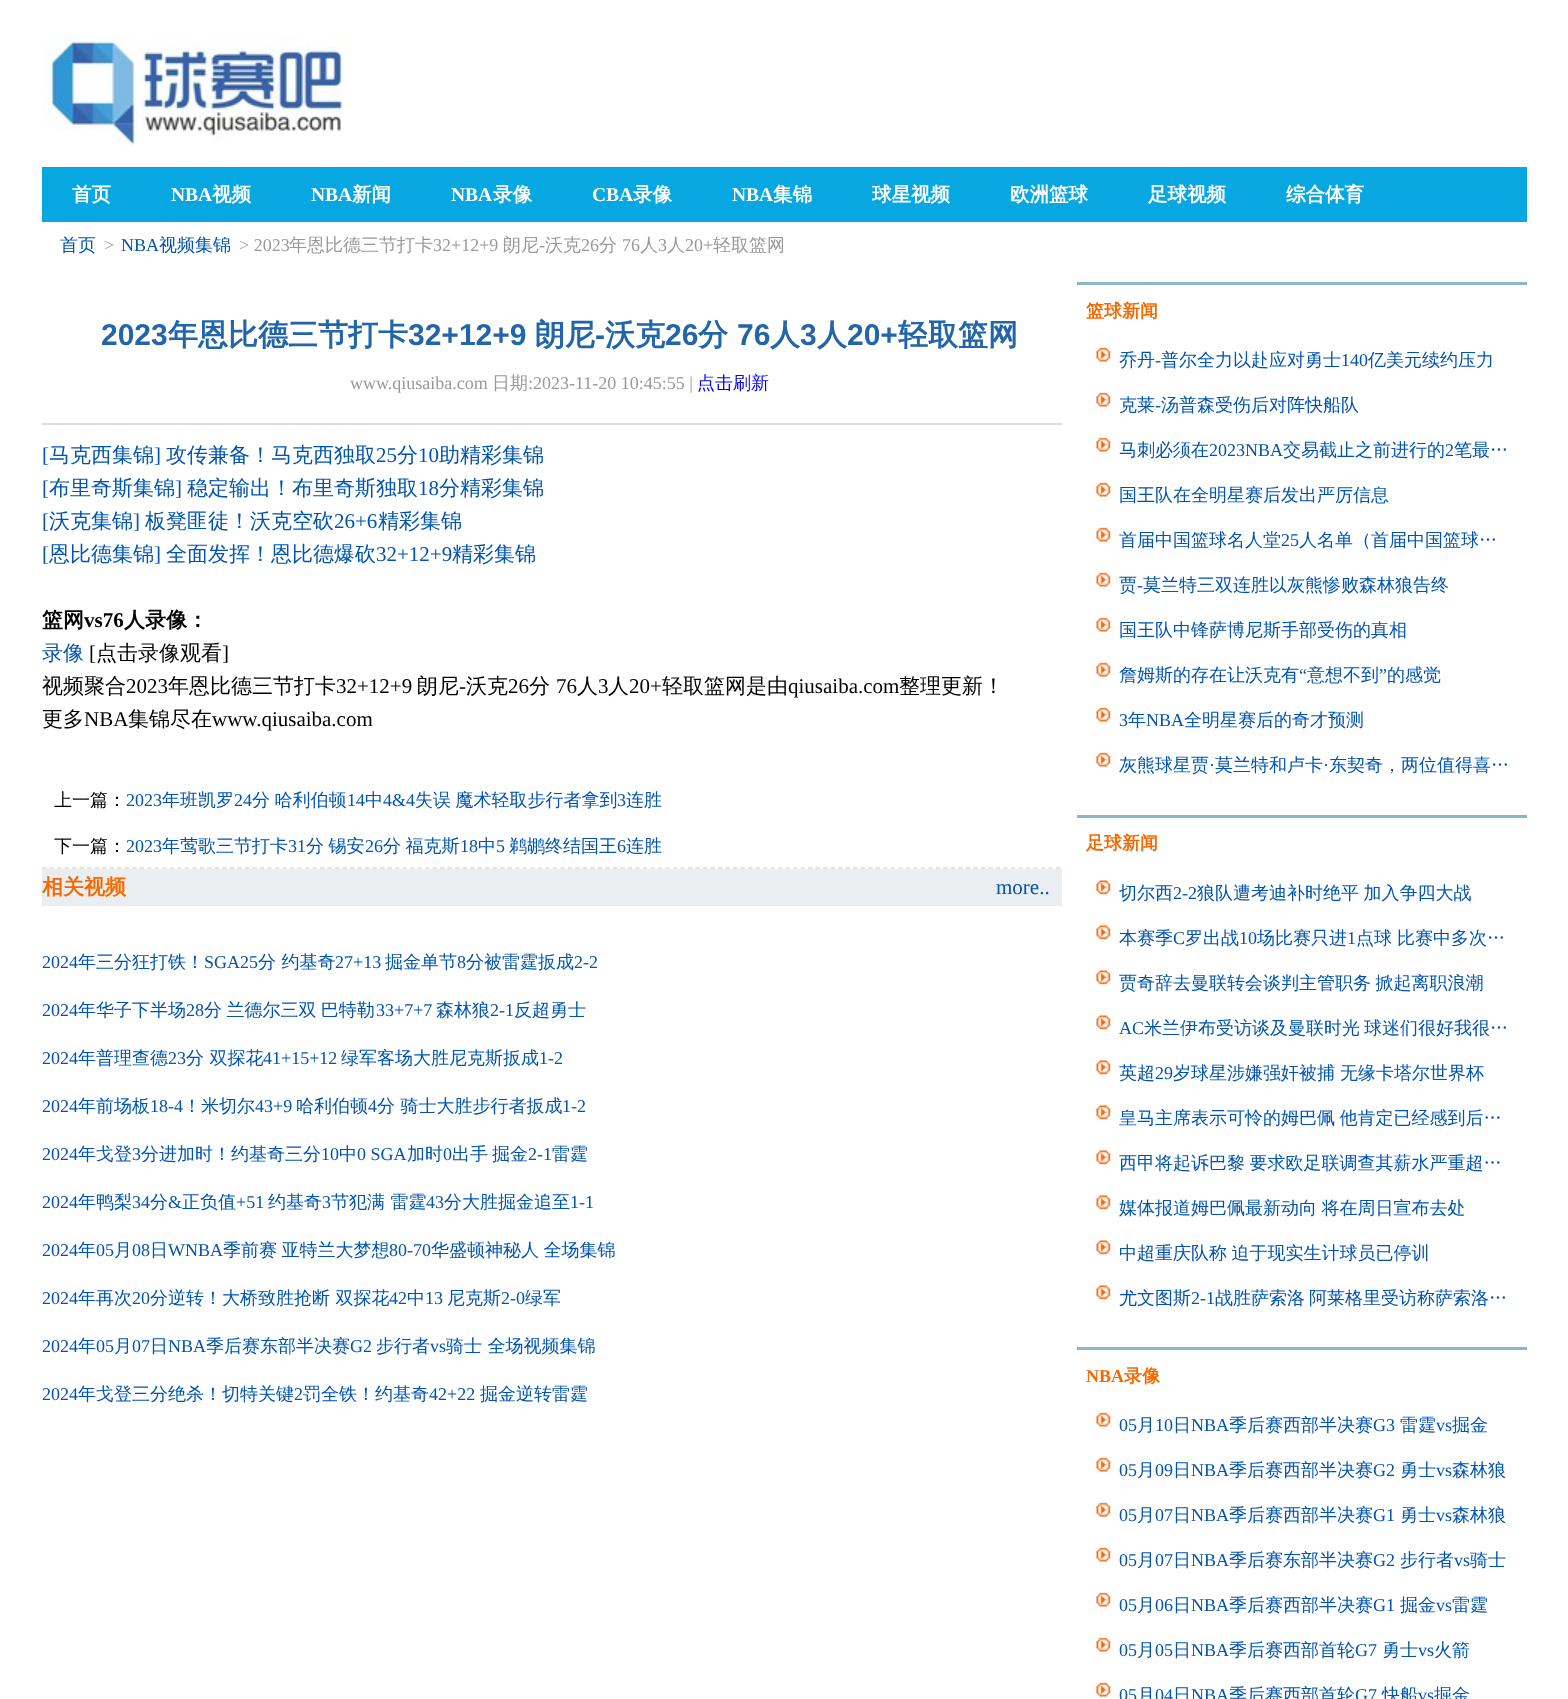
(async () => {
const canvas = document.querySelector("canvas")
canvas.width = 1568
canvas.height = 1699
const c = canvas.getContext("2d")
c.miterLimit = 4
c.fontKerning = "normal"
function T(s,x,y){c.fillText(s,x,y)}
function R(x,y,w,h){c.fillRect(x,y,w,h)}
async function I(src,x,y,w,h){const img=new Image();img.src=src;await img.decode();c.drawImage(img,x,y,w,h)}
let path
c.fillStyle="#fff"
R(0,0,1568,1699)
await I("1.png",42,34,312,113)
c.fillStyle="#07a7e1"
R(42,167,1485,55)
c.font="bold 19.5px WenQuanYi Zen Hei"
c.fillStyle="#fff"
T("首页",72,201)
c.font="bold 19.5px Liberation Serif"
T("NBA",171,201)
c.font="bold 19.5px WenQuanYi Zen Hei"
T("视频",212,201)
c.font="bold 19.5px Liberation Serif"
T("NBA",311,201)
c.font="bold 19.5px WenQuanYi Zen Hei"
T("新闻",352,201)
c.font="bold 19.5px Liberation Serif"
T("NBA",451,201)
c.font="bold 19.5px WenQuanYi Zen Hei"
T("录像",493,201)
c.font="bold 19.5px Liberation Serif"
T("CBA",592,201)
c.font="bold 19.5px WenQuanYi Zen Hei"
T("录像",633,201)
c.font="bold 19.5px Liberation Serif"
T("NBA",732,201)
c.font="bold 19.5px WenQuanYi Zen Hei"
T("集锦",773,201)
T("球星视频",872,201)
T("欧洲篮球",1010,201)
T("足球视频",1148,201)
T("综合体育",1286,201)
c.font="500 18px WenQuanYi Zen Hei"
c.fillStyle="#0054af"
T("首页",60,251)
c.font="18px Liberation Serif"
c.fillStyle="#999"
T(">",104,251)
c.fillStyle="#0054af"
T("NBA",121,251)
c.font="500 18px WenQuanYi Zen Hei"
T("视频集锦",159,251)
c.font="18px Liberation Serif"
c.fillStyle="#999"
T("> 2023",239,251)
c.font="500 18px WenQuanYi Zen Hei"
T("年恩比德三节打卡",289,251)
c.font="18px Liberation Serif"
T("32+12+9",433,251)
c.font="500 18px WenQuanYi Zen Hei"
T("朗尼",503,251)
c.font="18px Liberation Serif"
T("-",539,251)
c.font="500 18px WenQuanYi Zen Hei"
T("沃克",545,251)
c.font="18px Liberation Serif"
T("26",581,251)
c.font="500 18px WenQuanYi Zen Hei"
T("分",599,251)
c.font="18px Liberation Serif"
T("76",622,251)
c.font="500 18px WenQuanYi Zen Hei"
T("人",640,251)
c.font="18px Liberation Serif"
T("3",658,251)
c.font="500 18px WenQuanYi Zen Hei"
T("人",667,251)
c.font="18px Liberation Serif"
T("20+",685,251)
c.font="500 18px WenQuanYi Zen Hei"
T("轻取篮网",713,251)
c.font="bold 30px Liberation Sans"
c.fillStyle="#2265a9"
T("2023",101,345)
c.font="bold 30px WenQuanYi Zen Hei"
T("年恩比德三节打卡",168,345)
c.font="bold 30px Liberation Sans"
T("32+12+9",408,345)
c.font="bold 30px WenQuanYi Zen Hei"
T("朗尼",535,345)
c.font="bold 30px Liberation Sans"
T("-",595,345)
c.font="bold 30px WenQuanYi Zen Hei"
T("沃克",605,345)
c.font="bold 30px Liberation Sans"
T("26",665,345)
c.font="bold 30px WenQuanYi Zen Hei"
T("分",698,345)
c.font="bold 30px Liberation Sans"
T("76",737,345)
c.font="bold 30px WenQuanYi Zen Hei"
T("人",770,345)
c.font="bold 30px Liberation Sans"
T("3",800,345)
c.font="bold 30px WenQuanYi Zen Hei"
T("人",817,345)
c.font="bold 30px Liberation Sans"
T("20+",847,345)
c.font="bold 30px WenQuanYi Zen Hei"
T("轻取篮网",898,345)
c.font="18px Liberation Serif"
c.fillStyle="#999"
T("www.qiusaiba.com",350,389)
c.font="500 18px WenQuanYi Zen Hei"
T("日期",492,389)
c.font="18px Liberation Serif"
T(":2023-11-20 10:45:55 |",528,389)
c.font="500 18px WenQuanYi Zen Hei"
c.fillStyle="#00f"
T("点击刷新",697,389)
c.fillStyle="#dcdddd"
R(42,423,1020,2)
c.font="21px Liberation Serif"
c.fillStyle="#0054af"
T("[",42,462)
c.font="500 21px WenQuanYi Zen Hei"
T("马克西集锦",49,462)
c.font="21px Liberation Serif"
T("]",154,462)
c.font="500 21px WenQuanYi Zen Hei"
T("攻传兼备！马克西独取",166,462)
c.font="21px Liberation Serif"
T("25",376,462)
c.font="500 21px WenQuanYi Zen Hei"
T("分",397,462)
c.font="21px Liberation Serif"
T("10",418,462)
c.font="500 21px WenQuanYi Zen Hei"
T("助精彩集锦",439,462)
c.font="21px Liberation Serif"
T("[",42,495)
c.font="500 21px WenQuanYi Zen Hei"
T("布里奇斯集锦",49,495)
c.font="21px Liberation Serif"
T("]",175,495)
c.font="500 21px WenQuanYi Zen Hei"
T("稳定输出！布里奇斯独取",187,495)
c.font="21px Liberation Serif"
T("18",418,495)
c.font="500 21px WenQuanYi Zen Hei"
T("分精彩集锦",439,495)
c.font="21px Liberation Serif"
T("[",42,528)
c.font="500 21px WenQuanYi Zen Hei"
T("沃克集锦",49,528)
c.font="21px Liberation Serif"
T("]",133,528)
c.font="500 21px WenQuanYi Zen Hei"
T("板凳匪徒！沃克空砍",145,528)
c.font="21px Liberation Serif"
T("26+6",334,528)
c.font="500 21px WenQuanYi Zen Hei"
T("精彩集锦",378,528)
c.font="21px Liberation Serif"
T("[",42,561)
c.font="500 21px WenQuanYi Zen Hei"
T("恩比德集锦",49,561)
c.font="21px Liberation Serif"
T("]",154,561)
c.font="500 21px WenQuanYi Zen Hei"
T("全面发挥！恩比德爆砍",166,561)
c.font="21px Liberation Serif"
T("32+12+9",376,561)
c.font="500 21px WenQuanYi Zen Hei"
T("精彩集锦",452,561)
c.font="bold 21px WenQuanYi Zen Hei"
c.fillStyle="#000"
T("篮网",42,627)
c.font="bold 21px Liberation Serif"
T("vs76",84,627)
c.font="bold 21px WenQuanYi Zen Hei"
T("人录像：",124,627)
c.font="500 21px WenQuanYi Zen Hei"
c.fillStyle="#0054af"
T("录像",42,660)
c.font="21px Liberation Serif"
c.fillStyle="#000"
T("[",89,660)
c.font="500 21px WenQuanYi Zen Hei"
T("点击录像观看",96,660)
c.font="21px Liberation Serif"
T("]",222,660)
c.font="500 21px WenQuanYi Zen Hei"
T("视频聚合",42,693)
c.font="21px Liberation Serif"
T("2023",126,693)
c.font="500 21px WenQuanYi Zen Hei"
T("年恩比德三节打卡",168,693)
c.font="21px Liberation Serif"
T("32+12+9",336,693)
c.font="500 21px WenQuanYi Zen Hei"
T("朗尼",417,693)
c.font="21px Liberation Serif"
T("-",459,693)
c.font="500 21px WenQuanYi Zen Hei"
T("沃克",466,693)
c.font="21px Liberation Serif"
T("26",508,693)
c.font="500 21px WenQuanYi Zen Hei"
T("分",529,693)
c.font="21px Liberation Serif"
T("76",556,693)
c.font="500 21px WenQuanYi Zen Hei"
T("人",577,693)
c.font="21px Liberation Serif"
T("3",598,693)
c.font="500 21px WenQuanYi Zen Hei"
T("人",608,693)
c.font="21px Liberation Serif"
T("20+",629,693)
c.font="500 21px WenQuanYi Zen Hei"
T("轻取篮网是由",662,693)
c.font="21px Liberation Serif"
T("qiusaiba.com",788,693)
c.font="500 21px WenQuanYi Zen Hei"
T("整理更新！",899,693)
T("更多",42,726)
c.font="21px Liberation Serif"
T("NBA",84,726)
c.font="500 21px WenQuanYi Zen Hei"
T("集锦尽在",128,726)
c.font="21px Liberation Serif"
T("www.qiusaiba.com",212,726)
c.font="500 18px WenQuanYi Zen Hei"
T("上一篇：",54,806)
c.font="18px Liberation Serif"
c.fillStyle="#0054af"
T("2023",126,806)
c.font="500 18px WenQuanYi Zen Hei"
T("年班凯罗",162,806)
c.font="18px Liberation Serif"
T("24",234,806)
c.wordSpacing="-1px"
c.font="500 18px WenQuanYi Zen Hei"
T("分 哈利伯顿",252,806)
c.wordSpacing="0px"
c.font="18px Liberation Serif"
T("14",347,806)
c.font="500 18px WenQuanYi Zen Hei"
T("中",365,806)
c.font="18px Liberation Serif"
T("4&4",383,806)
c.wordSpacing="-1px"
c.font="500 18px WenQuanYi Zen Hei"
T("失误 魔术轻取步行者拿到",415,806)
c.wordSpacing="0px"
c.font="18px Liberation Serif"
T("3",617,806)
c.font="500 18px WenQuanYi Zen Hei"
T("连胜",626,806)
path = new Path2D("M42 868h1020")
c.strokeStyle="#dcdddd"
c.lineWidth=1.5
c.setLineDash([4.5,3.01])
c.stroke(path)
c.fillStyle="#000"
T("下一篇：",54,852)
c.font="18px Liberation Serif"
c.fillStyle="#0054af"
T("2023",126,852)
c.font="500 18px WenQuanYi Zen Hei"
T("年莺歌三节打卡",162,852)
c.font="18px Liberation Serif"
T("31",288,852)
c.wordSpacing="-1px"
c.font="500 18px WenQuanYi Zen Hei"
T("分 锡安",306,852)
c.wordSpacing="0px"
c.font="18px Liberation Serif"
T("26",365,852)
c.wordSpacing="-1px"
c.font="500 18px WenQuanYi Zen Hei"
T("分 福克斯",383,852)
c.wordSpacing="0px"
c.font="18px Liberation Serif"
T("18",460,852)
c.font="500 18px WenQuanYi Zen Hei"
T("中",478,852)
c.font="18px Liberation Serif"
T("5",496,852)
c.font="500 18px WenQuanYi Zen Hei"
T("鹈鹕终结国王",509,852)
c.font="18px Liberation Serif"
T("6",617,852)
c.font="500 18px WenQuanYi Zen Hei"
T("连胜",626,852)
c.fillStyle="#eaeef0"
R(42,869,1020,37)
c.font="bold 21px WenQuanYi Zen Hei"
c.fillStyle="#f66800"
T("相关视频",42,894)
c.font="21px Liberation Serif"
c.fillStyle="#0054af"
T("more..",996,894)
c.font="18px Liberation Serif"
T("2024",42,968)
c.font="500 18px WenQuanYi Zen Hei"
T("年三分狂打铁！",78,968)
c.font="18px Liberation Serif"
T("SGA25",204,968)
c.font="500 18px WenQuanYi Zen Hei"
T("分 约基奇",258,968)
c.font="18px Liberation Serif"
T("27+13",335,968)
c.font="500 18px WenQuanYi Zen Hei"
T("掘金单节",385,968)
c.font="18px Liberation Serif"
T("8",457,968)
c.font="500 18px WenQuanYi Zen Hei"
T("分被雷霆扳成",466,968)
c.font="18px Liberation Serif"
T("2-2",574,968)
T("2024",42,1016)
c.font="500 18px WenQuanYi Zen Hei"
T("年华子下半场",78,1016)
c.font="18px Liberation Serif"
T("28",186,1016)
c.wordSpacing="-1px"
c.font="500 18px WenQuanYi Zen Hei"
T("分 兰德尔三双 巴特勒",204,1016)
c.wordSpacing="0px"
c.font="18px Liberation Serif"
T("33+7+7",376,1016)
c.font="500 18px WenQuanYi Zen Hei"
T("森林狼",436,1016)
c.font="18px Liberation Serif"
T("2-1",490,1016)
c.font="500 18px WenQuanYi Zen Hei"
T("反超勇士",514,1016)
c.font="18px Liberation Serif"
T("2024",42,1064)
c.font="500 18px WenQuanYi Zen Hei"
T("年普理查德",78,1064)
c.font="18px Liberation Serif"
T("23",168,1064)
c.font="500 18px WenQuanYi Zen Hei"
T("分 双探花",186,1064)
c.font="18px Liberation Serif"
T("41+15+12",263,1064)
c.font="500 18px WenQuanYi Zen Hei"
T("绿军客场大胜尼克斯扳成",341,1064)
c.font="18px Liberation Serif"
T("1-2",539,1064)
T("2024",42,1112)
c.font="500 18px WenQuanYi Zen Hei"
T("年前场板",78,1112)
c.font="18px Liberation Serif"
T("18-4",150,1112)
c.font="500 18px WenQuanYi Zen Hei"
T("！米切尔",183,1112)
c.font="18px Liberation Serif"
T("43+9",255,1112)
c.font="500 18px WenQuanYi Zen Hei"
T("哈利伯顿",296,1112)
c.font="18px Liberation Serif"
T("4",368,1112)
c.font="500 18px WenQuanYi Zen Hei"
T("分 骑士大胜步行者扳成",377,1112)
c.font="18px Liberation Serif"
T("1-2",562,1112)
T("2024",42,1160)
c.font="500 18px WenQuanYi Zen Hei"
T("年戈登",78,1160)
c.font="18px Liberation Serif"
T("3",132,1160)
c.font="500 18px WenQuanYi Zen Hei"
T("分进加时！约基奇三分",141,1160)
c.font="18px Liberation Serif"
T("10",321,1160)
c.font="500 18px WenQuanYi Zen Hei"
T("中",339,1160)
c.font="18px Liberation Serif"
T("0 SGA",357,1160)
c.font="500 18px WenQuanYi Zen Hei"
T("加时",407,1160)
c.font="18px Liberation Serif"
T("0",443,1160)
c.font="500 18px WenQuanYi Zen Hei"
T("出手",452,1160)
T("掘金",492,1160)
c.font="18px Liberation Serif"
T("2-1",528,1160)
c.font="500 18px WenQuanYi Zen Hei"
T("雷霆",552,1160)
c.font="18px Liberation Serif"
T("2024",42,1208)
c.font="500 18px WenQuanYi Zen Hei"
T("年鸭梨",78,1208)
c.font="18px Liberation Serif"
T("34",132,1208)
c.font="500 18px WenQuanYi Zen Hei"
T("分",150,1208)
c.font="18px Liberation Serif"
T("&",168,1208)
c.font="500 18px WenQuanYi Zen Hei"
T("正负值",182,1208)
c.font="18px Liberation Serif"
T("+51",236,1208)
c.font="500 18px WenQuanYi Zen Hei"
T("约基奇",268,1208)
c.font="18px Liberation Serif"
T("3",322,1208)
c.font="500 18px WenQuanYi Zen Hei"
T("节犯满 雷霆",331,1208)
c.font="18px Liberation Serif"
T("43",426,1208)
c.font="500 18px WenQuanYi Zen Hei"
T("分大胜掘金追至",444,1208)
c.font="18px Liberation Serif"
T("1-1",570,1208)
T("2024",42,1256)
c.font="500 18px WenQuanYi Zen Hei"
T("年",78,1256)
c.font="18px Liberation Serif"
T("05",96,1256)
c.font="500 18px WenQuanYi Zen Hei"
T("月",114,1256)
c.font="18px Liberation Serif"
T("08",132,1256)
c.font="500 18px WenQuanYi Zen Hei"
T("日",150,1256)
c.font="18px Liberation Serif"
T("WNBA",168,1256)
c.wordSpacing="-1px"
c.font="500 18px WenQuanYi Zen Hei"
T("季前赛 亚特兰大梦想",223,1256)
c.wordSpacing="0px"
c.font="18px Liberation Serif"
T("80-70",389,1256)
c.wordSpacing="-1px"
c.font="500 18px WenQuanYi Zen Hei"
T("华盛顿神秘人 全场集锦",431,1256)
c.wordSpacing="0px"
c.font="18px Liberation Serif"
T("2024",42,1304)
c.font="500 18px WenQuanYi Zen Hei"
T("年再次",78,1304)
c.font="18px Liberation Serif"
T("20",132,1304)
c.font="500 18px WenQuanYi Zen Hei"
T("分逆转！大桥致胜抢断 双探花",150,1304)
c.font="18px Liberation Serif"
T("42",389,1304)
c.font="500 18px WenQuanYi Zen Hei"
T("中",407,1304)
c.font="18px Liberation Serif"
T("13",425,1304)
c.font="500 18px WenQuanYi Zen Hei"
T("尼克斯",447,1304)
c.font="18px Liberation Serif"
T("2-0",501,1304)
c.font="500 18px WenQuanYi Zen Hei"
T("绿军",525,1304)
c.font="18px Liberation Serif"
T("2024",42,1352)
c.font="500 18px WenQuanYi Zen Hei"
T("年",78,1352)
c.font="18px Liberation Serif"
T("05",96,1352)
c.font="500 18px WenQuanYi Zen Hei"
T("月",114,1352)
c.font="18px Liberation Serif"
T("07",132,1352)
c.font="500 18px WenQuanYi Zen Hei"
T("日",150,1352)
c.font="18px Liberation Serif"
T("NBA",168,1352)
c.font="500 18px WenQuanYi Zen Hei"
T("季后赛东部半决赛",206,1352)
c.font="18px Liberation Serif"
T("G2",350,1352)
c.font="500 18px WenQuanYi Zen Hei"
T("步行者",376,1352)
c.font="18px Liberation Serif"
T("vs",430,1352)
c.font="500 18px WenQuanYi Zen Hei"
T("骑士 全场视频集锦",446,1352)
c.font="18px Liberation Serif"
T("2024",42,1400)
c.font="500 18px WenQuanYi Zen Hei"
T("年戈登三分绝杀！切特关键",78,1400)
c.font="18px Liberation Serif"
T("2",294,1400)
c.font="500 18px WenQuanYi Zen Hei"
T("罚全铁！约基奇",303,1400)
c.font="18px Liberation Serif"
T("42+22",429,1400)
c.font="500 18px WenQuanYi Zen Hei"
T("掘金逆转雷霆",480,1400)
c.fillStyle="#8ab7ce"
R(1077,282,450,3)
c.font="bold 18px WenQuanYi Zen Hei"
c.fillStyle="#f66800"
T("篮球新闻",1086,317)
await I("2.png",1096,347,15,15)
c.font="500 18px WenQuanYi Zen Hei"
c.fillStyle="#0054af"
T("乔丹",1119,366)
c.font="18px Liberation Serif"
T("-",1155,366)
c.font="500 18px WenQuanYi Zen Hei"
T("普尔全力以赴应对勇士",1161,366)
c.font="18px Liberation Serif"
T("140",1341,366)
c.font="500 18px WenQuanYi Zen Hei"
T("亿美元续约压力",1368,366)
await I("2.png",1096,392,15,15)
T("克莱",1119,411)
c.font="18px Liberation Serif"
T("-",1155,411)
c.font="500 18px WenQuanYi Zen Hei"
T("汤普森受伤后对阵快船队",1161,411)
await I("2.png",1096,437,15,15)
T("马刺必须在",1119,456)
c.font="18px Liberation Serif"
T("2023NBA",1209,456)
c.font="500 18px WenQuanYi Zen Hei"
T("交易截止之前进行的",1283,456)
c.font="18px Liberation Serif"
T("2",1445,456)
c.font="500 18px WenQuanYi Zen Hei"
T("笔最…",1454,456)
await I("2.png",1096,482,15,15)
T("国王队在全明星赛后发出严厉信息",1119,501)
await I("2.png",1096,527,15,15)
T("首届中国篮球名人堂",1119,546)
c.font="18px Liberation Serif"
T("25",1281,546)
c.font="500 18px WenQuanYi Zen Hei"
T("人名单（首届中国篮球…",1299,546)
await I("2.png",1096,572,15,15)
T("贾",1119,591)
c.font="18px Liberation Serif"
T("-",1137,591)
c.font="500 18px WenQuanYi Zen Hei"
T("莫兰特三双连胜以灰熊惨败森林狼告终",1143,591)
await I("2.png",1096,617,15,15)
T("国王队中锋萨博尼斯手部受伤的真相",1119,636)
await I("2.png",1096,662,15,15)
T("詹姆斯的存在让沃克有",1119,681)
c.font="18px Liberation Serif"
T("“",1299,681)
c.font="500 18px WenQuanYi Zen Hei"
T("意想不到",1307,681)
c.font="18px Liberation Serif"
T("”",1379,681)
c.font="500 18px WenQuanYi Zen Hei"
T("的感觉",1387,681)
await I("2.png",1096,707,15,15)
c.font="18px Liberation Serif"
T("3",1119,726)
c.font="500 18px WenQuanYi Zen Hei"
T("年",1128,726)
c.font="18px Liberation Serif"
T("NBA",1146,726)
c.font="500 18px WenQuanYi Zen Hei"
T("全明星赛后的奇才预测",1184,726)
await I("2.png",1096,752,15,15)
T("灰熊球星贾",1119,771)
c.font="18px Liberation Serif"
T("·",1209,771)
c.font="500 18px WenQuanYi Zen Hei"
T("莫兰特和卢卡",1215,771)
c.font="18px Liberation Serif"
T("·",1323,771)
c.font="500 18px WenQuanYi Zen Hei"
T("东契奇，两位值得喜…",1329,771)
c.fillStyle="#8ab7ce"
R(1077,815,450,3)
c.font="bold 18px WenQuanYi Zen Hei"
c.fillStyle="#f66800"
T("足球新闻",1086,849)
await I("3.png",1096,880,15,15)
c.font="500 18px WenQuanYi Zen Hei"
c.fillStyle="#0054af"
T("切尔西",1119,899)
c.font="18px Liberation Serif"
T("2-2",1173,899)
c.wordSpacing="-1px"
c.font="500 18px WenQuanYi Zen Hei"
T("狼队遭考迪补时绝平 加入争四大战",1197,899)
await I("3.png",1096,925,15,15)
c.wordSpacing="0px"
T("本赛季",1119,944)
c.font="18px Liberation Serif"
T("C",1173,944)
c.font="500 18px WenQuanYi Zen Hei"
T("罗出战",1185,944)
c.font="18px Liberation Serif"
T("10",1239,944)
c.font="500 18px WenQuanYi Zen Hei"
T("场比赛只进",1257,944)
c.font="18px Liberation Serif"
T("1",1347,944)
c.font="500 18px WenQuanYi Zen Hei"
T("点球",1356,944)
T("比赛中多次…",1397,944)
await I("3.png",1096,970,15,15)
c.wordSpacing="-1px"
T("贾奇辞去曼联转会谈判主管职务 掀起离职浪潮",1119,989)
await I("3.png",1096,1015,15,15)
c.wordSpacing="0px"
c.font="18px Liberation Serif"
T("AC",1119,1034)
c.font="500 18px WenQuanYi Zen Hei"
T("米兰伊布受访谈及曼联时光",1144,1034)
T("球迷们很好我很…",1364,1034)
await I("3.png",1096,1060,15,15)
T("英超",1119,1079)
c.font="18px Liberation Serif"
T("29",1155,1079)
c.font="500 18px WenQuanYi Zen Hei"
T("岁球星涉嫌强奸被捕",1173,1079)
T("无缘卡塔尔世界杯",1340,1079)
await I("3.png",1096,1105,15,15)
c.wordSpacing="-1px"
T("皇马主席表示可怜的姆巴佩 他肯定已经感到后…",1119,1124)
await I("3.png",1096,1150,15,15)
T("西甲将起诉巴黎 要求欧足联调查其薪水严重超…",1119,1169)
await I("3.png",1096,1195,15,15)
T("媒体报道姆巴佩最新动向 将在周日宣布去处",1119,1214)
await I("3.png",1096,1240,15,15)
T("中超重庆队称 迫于现实生计球员已停训",1119,1259)
await I("3.png",1096,1285,15,15)
c.wordSpacing="0px"
T("尤文图斯",1119,1304)
c.font="18px Liberation Serif"
T("2-1",1191,1304)
c.font="500 18px WenQuanYi Zen Hei"
T("战胜萨索洛",1215,1304)
T("阿莱格里受访称萨索洛…",1309,1304)
c.fillStyle="#8ab7ce"
R(1077,1347,450,3)
c.font="bold 18px Liberation Serif"
c.fillStyle="#f66800"
T("NBA",1086,1382)
c.font="bold 18px WenQuanYi Zen Hei"
T("录像",1124,1382)
await I("2.png",1096,1412,15,15)
c.font="18px Liberation Serif"
c.fillStyle="#0054af"
T("05",1119,1431)
c.font="500 18px WenQuanYi Zen Hei"
T("月",1137,1431)
c.font="18px Liberation Serif"
T("10",1155,1431)
c.font="500 18px WenQuanYi Zen Hei"
T("日",1173,1431)
c.font="18px Liberation Serif"
T("NBA",1191,1431)
c.font="500 18px WenQuanYi Zen Hei"
T("季后赛西部半决赛",1229,1431)
c.font="18px Liberation Serif"
T("G3",1373,1431)
c.font="500 18px WenQuanYi Zen Hei"
T("雷霆",1400,1431)
c.font="18px Liberation Serif"
T("vs",1436,1431)
c.font="500 18px WenQuanYi Zen Hei"
T("掘金",1452,1431)
await I("2.png",1096,1457,15,15)
c.font="18px Liberation Serif"
T("05",1119,1476)
c.font="500 18px WenQuanYi Zen Hei"
T("月",1137,1476)
c.font="18px Liberation Serif"
T("09",1155,1476)
c.font="500 18px WenQuanYi Zen Hei"
T("日",1173,1476)
c.font="18px Liberation Serif"
T("NBA",1191,1476)
c.font="500 18px WenQuanYi Zen Hei"
T("季后赛西部半决赛",1229,1476)
c.font="18px Liberation Serif"
T("G2",1373,1476)
c.font="500 18px WenQuanYi Zen Hei"
T("勇士",1400,1476)
c.font="18px Liberation Serif"
T("vs",1436,1476)
c.font="500 18px WenQuanYi Zen Hei"
T("森林狼",1452,1476)
await I("2.png",1096,1502,15,15)
c.font="18px Liberation Serif"
T("05",1119,1521)
c.font="500 18px WenQuanYi Zen Hei"
T("月",1137,1521)
c.font="18px Liberation Serif"
T("07",1155,1521)
c.font="500 18px WenQuanYi Zen Hei"
T("日",1173,1521)
c.font="18px Liberation Serif"
T("NBA",1191,1521)
c.font="500 18px WenQuanYi Zen Hei"
T("季后赛西部半决赛",1229,1521)
c.font="18px Liberation Serif"
T("G1",1373,1521)
c.font="500 18px WenQuanYi Zen Hei"
T("勇士",1400,1521)
c.font="18px Liberation Serif"
T("vs",1436,1521)
c.font="500 18px WenQuanYi Zen Hei"
T("森林狼",1452,1521)
await I("2.png",1096,1547,15,15)
c.font="18px Liberation Serif"
T("05",1119,1566)
c.font="500 18px WenQuanYi Zen Hei"
T("月",1137,1566)
c.font="18px Liberation Serif"
T("07",1155,1566)
c.font="500 18px WenQuanYi Zen Hei"
T("日",1173,1566)
c.font="18px Liberation Serif"
T("NBA",1191,1566)
c.font="500 18px WenQuanYi Zen Hei"
T("季后赛东部半决赛",1229,1566)
c.font="18px Liberation Serif"
T("G2",1373,1566)
c.font="500 18px WenQuanYi Zen Hei"
T("步行者",1400,1566)
c.font="18px Liberation Serif"
T("vs",1454,1566)
c.font="500 18px WenQuanYi Zen Hei"
T("骑士",1470,1566)
await I("2.png",1096,1592,15,15)
c.font="18px Liberation Serif"
T("05",1119,1611)
c.font="500 18px WenQuanYi Zen Hei"
T("月",1137,1611)
c.font="18px Liberation Serif"
T("06",1155,1611)
c.font="500 18px WenQuanYi Zen Hei"
T("日",1173,1611)
c.font="18px Liberation Serif"
T("NBA",1191,1611)
c.font="500 18px WenQuanYi Zen Hei"
T("季后赛西部半决赛",1229,1611)
c.font="18px Liberation Serif"
T("G1",1373,1611)
c.font="500 18px WenQuanYi Zen Hei"
T("掘金",1400,1611)
c.font="18px Liberation Serif"
T("vs",1436,1611)
c.font="500 18px WenQuanYi Zen Hei"
T("雷霆",1452,1611)
await I("2.png",1096,1637,15,15)
c.font="18px Liberation Serif"
T("05",1119,1656)
c.font="500 18px WenQuanYi Zen Hei"
T("月",1137,1656)
c.font="18px Liberation Serif"
T("05",1155,1656)
c.font="500 18px WenQuanYi Zen Hei"
T("日",1173,1656)
c.font="18px Liberation Serif"
T("NBA",1191,1656)
c.font="500 18px WenQuanYi Zen Hei"
T("季后赛西部首轮",1229,1656)
c.font="18px Liberation Serif"
T("G7",1355,1656)
c.font="500 18px WenQuanYi Zen Hei"
T("勇士",1382,1656)
c.font="18px Liberation Serif"
T("vs",1418,1656)
c.font="500 18px WenQuanYi Zen Hei"
T("火箭",1434,1656)
await I("2.png",1096,1682,15,15)
c.font="18px Liberation Serif"
T("05",1119,1701)
c.font="500 18px WenQuanYi Zen Hei"
T("月",1137,1701)
c.font="18px Liberation Serif"
T("04",1155,1701)
c.font="500 18px WenQuanYi Zen Hei"
T("日",1173,1701)
c.font="18px Liberation Serif"
T("NBA",1191,1701)
c.font="500 18px WenQuanYi Zen Hei"
T("季后赛西部首轮",1229,1701)
c.font="18px Liberation Serif"
T("G7",1355,1701)
c.font="500 18px WenQuanYi Zen Hei"
T("快船",1382,1701)
c.font="18px Liberation Serif"
T("vs",1418,1701)
c.font="500 18px WenQuanYi Zen Hei"
T("掘金",1434,1701)
})()
